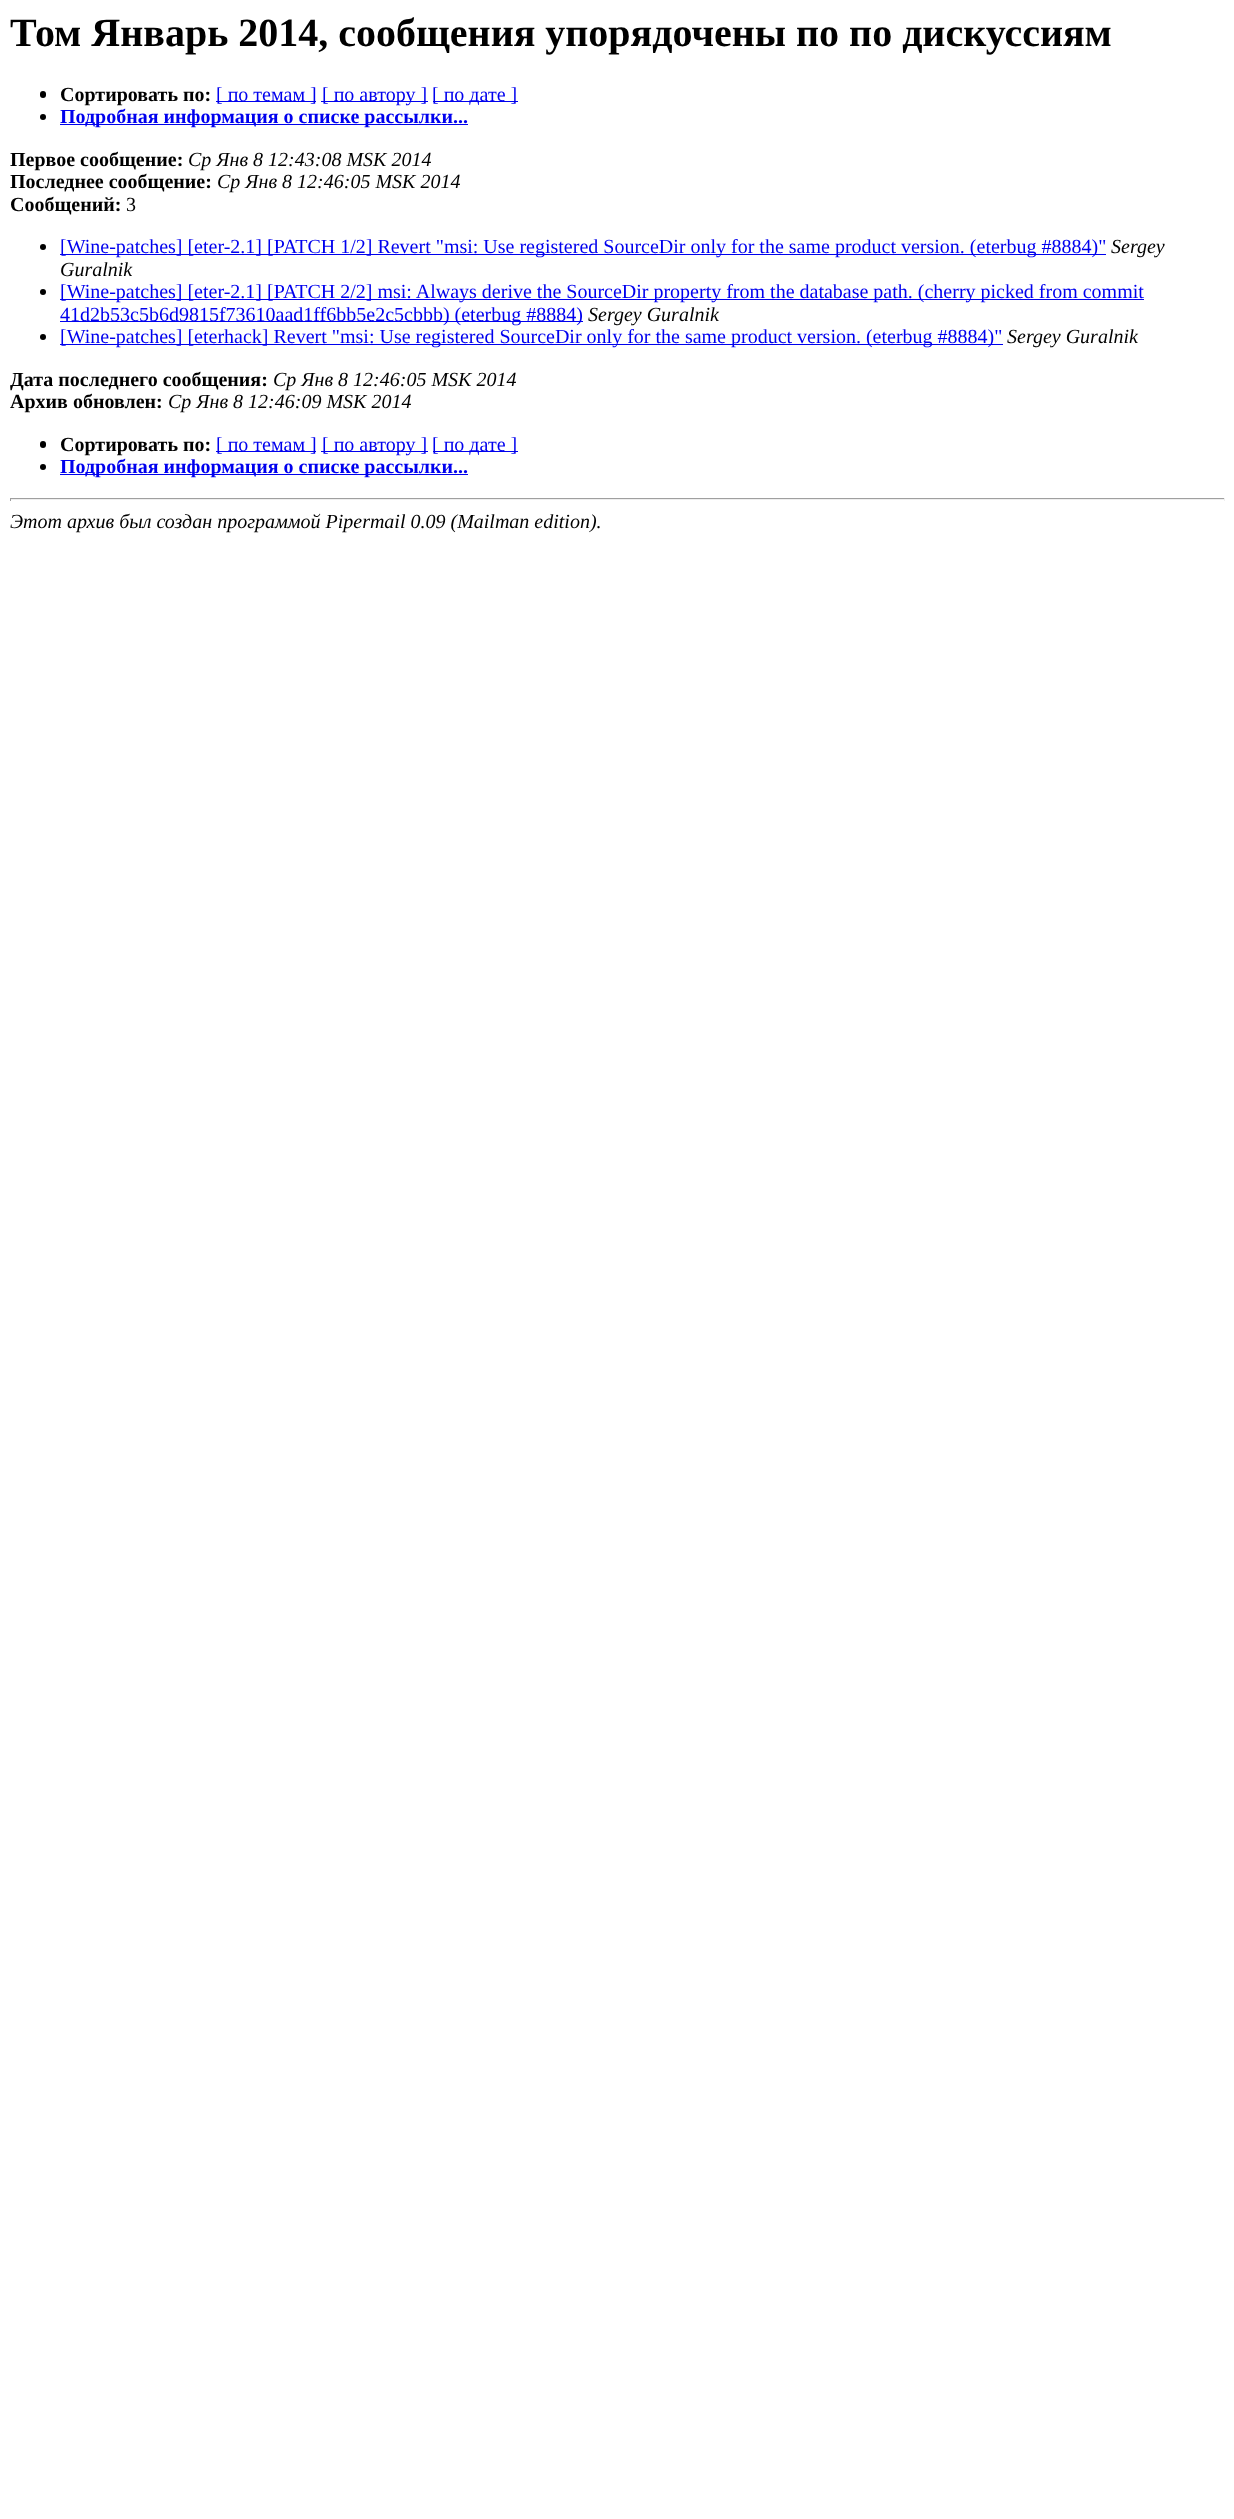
(async () => {
const canvas = document.querySelector("canvas")
canvas.width = 1234
canvas.height = 2519
const c = canvas.getContext("2d")
c.miterLimit = 4
c.fontKerning = "normal"
function T(s,x,y){c.fillText(s,x,y)}
function R(x,y,w,h){c.fillRect(x,y,w,h)}
function Q(x,y,w,h,r){c.beginPath();c.roundRect(x,y,w,h,r);c.fill()}
c.fillStyle="#fff"
R(0,0,1234,2519)
c.font="bold 40px Liberation Serif"
c.fillStyle="#000"
T("Том Январь 2014, сообщения упорядочены по по дискуссиям",10,46)
Q(40,91,6,7,3)
c.font="bold 20px Liberation Serif"
T("Сортировать по:",60,101)
c.fillStyle="#00e"
R(216,101,100,1)
c.font="20px Liberation Serif"
T("[ по темам ]",216,101)
R(321,101,107,1)
T("[ по автору ]",322,101)
R(433,101,85,1)
T("[ по дате ]",432,101)
c.fillStyle="#000"
c.beginPath()
c.arc(43,117,3,0,7)
c.fill()
c.fillStyle="#00e"
R(60,124,408,1)
c.font="bold 20px Liberation Serif"
T("Подробная информация о списке рассылки...",60,123)
c.fillStyle="#000"
T("Первое сообщение:",10,166)
c.font="italic 20px Liberation Serif"
T("Ср Янв 8 12:43:08 MSK 2014",188,166)
c.font="bold 20px Liberation Serif"
T("Последнее сообщение:",10,188)
c.font="italic 20px Liberation Serif"
T("Ср Янв 8 12:46:05 MSK 2014",217,188)
c.font="bold 20px Liberation Serif"
T("Сообщений:",10,211)
c.font="20px Liberation Serif"
T("3",126,211)
c.beginPath()
c.arc(43,247,3,0,7)
c.fill()
c.fillStyle="#00e"
R(60,254,1046,1)
T("[Wine-patches] [eter-2.1] [PATCH 1/2] Revert \"msi: Use registered SourceDir only for the same product version. (eterbug #8884)\"",60,253)
c.font="italic 20px Liberation Serif"
c.fillStyle="#000"
T("Sergey",1111,253)
T("Guralnik",60,276)
c.beginPath()
c.arc(43,292,3,0,7)
c.fill()
c.fillStyle="#00e"
R(60,299,1084,1)
c.font="20px Liberation Serif"
T("[Wine-patches] [eter-2.1] [PATCH 2/2] msi: Always derive the SourceDir property from the database path. (cherry picked from commit",60,298)
R(60,321,523,1)
T("41d2b53c5b6d9815f73610aad1ff6bb5e2c5cbbb) (eterbug #8884)",60,321)
c.font="italic 20px Liberation Serif"
c.fillStyle="#000"
T("Sergey Guralnik",588,321)
c.beginPath()
c.arc(43,337,3,0,7)
c.fill()
c.fillStyle="#00e"
R(60,344,943,1)
c.font="20px Liberation Serif"
T("[Wine-patches] [eterhack] Revert \"msi: Use registered SourceDir only for the same product version. (eterbug #8884)\"",60,343)
c.font="italic 20px Liberation Serif"
c.fillStyle="#000"
T("Sergey Guralnik",1007,343)
c.font="bold 20px Liberation Serif"
T("Дата последнего сообщения:",10,386)
c.font="italic 20px Liberation Serif"
T("Ср Янв 8 12:46:05 MSK 2014",273,386)
c.font="bold 20px Liberation Serif"
T("Архив обновлен:",10,408)
c.font="italic 20px Liberation Serif"
T("Ср Янв 8 12:46:09 MSK 2014",168,408)
Q(40,441,6,7,3)
c.font="bold 20px Liberation Serif"
T("Сортировать по:",60,451)
c.fillStyle="#00e"
R(216,451,100,1)
c.font="20px Liberation Serif"
T("[ по темам ]",216,451)
R(321,451,107,1)
T("[ по автору ]",322,451)
R(433,451,85,1)
T("[ по дате ]",432,451)
c.fillStyle="#000"
c.beginPath()
c.arc(43,467,3,0,7)
c.fill()
c.fillStyle="#00e"
R(60,474,408,1)
c.font="bold 20px Liberation Serif"
T("Подробная информация о списке рассылки...",60,473)
c.fillStyle="#9f9f9f"
R(10,498,1215,1)
c.fillStyle="#eee"
R(1224,498,1,3)
R(10,499,1215,1)
c.fillStyle="#9f9f9f"
R(10,498,1,3)
c.font="italic 20px Liberation Serif"
c.fillStyle="#000"
T("Этот архив был создан программой Pipermail 0.09 (Mailman edition).",10,528)
})()
